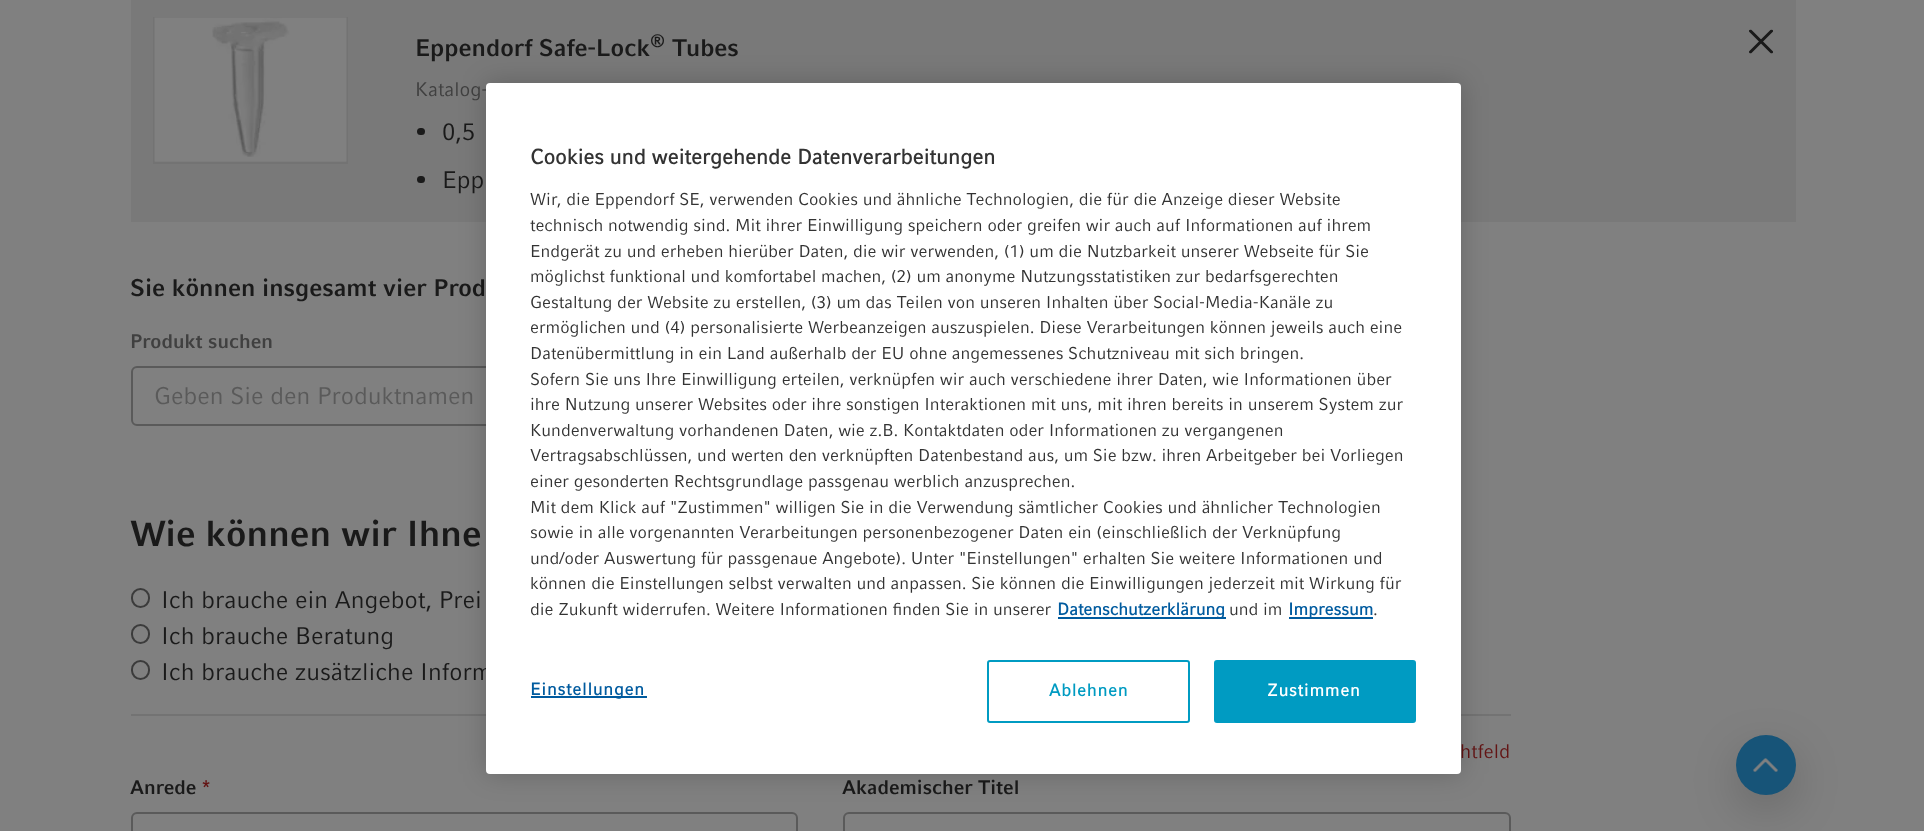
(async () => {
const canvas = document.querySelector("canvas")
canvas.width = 1924
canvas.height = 831
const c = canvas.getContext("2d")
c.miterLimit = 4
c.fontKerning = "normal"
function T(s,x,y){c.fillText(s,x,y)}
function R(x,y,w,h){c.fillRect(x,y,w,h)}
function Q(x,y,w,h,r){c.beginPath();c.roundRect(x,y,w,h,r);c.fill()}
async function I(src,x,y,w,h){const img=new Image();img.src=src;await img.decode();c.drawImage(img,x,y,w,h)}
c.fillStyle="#808080"
R(0,0,1924,831)
c.fillStyle="#797979"
R(131,0,1665,222)
c.strokeStyle="#737373"
c.lineWidth=2
c.strokeRect(154,18,193,145)
await I("1.png",154,17,193,145)
c.font="bold 24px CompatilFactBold"
c.fillStyle="#1a1a1a"
T("Eppendorf Safe-Lock",415,56)
c.font="bold 18px CompatilFactBold"
T("®",650,47)
c.font="bold 24px CompatilFactBold"
T("Tubes",672,56)
await I("2.png",1749,29,24,25)
c.font="19.5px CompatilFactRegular"
c.fillStyle="#404040"
T("Katalog-",415,96)
c.fillStyle="#1a1a1a"
Q(417,128,8,7,3.5)
c.font="24px CompatilFactRegular"
T("0,5",442,140)
Q(417,176,8,7,3.5)
T("Epp",442,188)
c.font="bold 24px CompatilFactBold"
T("Sie können insgesamt vier Prod",130,296)
c.font="bold 19.5px CompatilFactBold"
c.fillStyle="#404040"
T("Produkt suchen",130,348)
c.beginPath()
c.roundRect(132,367,853,58,5)
c.strokeStyle="#5a5a5a"
c.stroke()
c.font="24px CompatilFactRegular"
c.fillStyle="#5a5a5a"
T("Geben Sie den Produktnamen",154,404)
c.font="bold 36px CompatilFactBold"
c.fillStyle="#1a1a1a"
T("Wie können wir Ihne",130,546)
c.beginPath()
c.roundRect(132,589,17,18,8.5)
c.strokeStyle="#3b3b3b"
c.stroke()
c.font="24px CompatilFactRegular"
T("Ich brauche ein Angebot, Prei",161,608)
c.beginPath()
c.roundRect(132,625,17,18,8.5)
c.stroke()
T("Ich brauche Beratung",161,644)
c.beginPath()
c.roundRect(132,661,17,18,8.5)
c.stroke()
T("Ich brauche zusätzliche Inform",161,680)
c.fillStyle="#737373"
R(131,714,1380,2)
c.font="19.5px CompatilFactRegular"
c.fillStyle="#631414"
T("htfeld",1460,758)
c.font="bold 19.5px CompatilFactBold"
c.fillStyle="#1a1a1a"
T("Anrede",130,794)
c.fillStyle="#631414"
T("*",202,794)
c.beginPath()
c.roundRect(132,813,665,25,5)
c.strokeStyle="#5a5a5a"
c.stroke()
c.fillStyle="#1a1a1a"
T("Akademischer Titel",842,794)
c.beginPath()
c.roundRect(844,813,666,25,5)
c.stroke()
c.fillStyle="#0000002e"
c.filter="blur(22.5px)"
c.beginPath()
c.roundRect(1736,750,60,60,30)
c.fill()
c.filter="none"
c.fillStyle="#175478"
c.beginPath()
c.arc(1766,765,30,0,7)
c.fill()
await I("3.png",1753,758,25,14)
c.fillStyle="#00000033"
c.filter="blur(13.5px)"
c.beginPath()
c.roundRect(486,83,975,691,4)
c.fill()
c.filter="none"
c.fillStyle="#fff"
Q(486,83,975,691,4)
c.font="bold 21px CompatilFactRegular"
c.fillStyle="#333"
T("Cookies und weitergehende Datenverarbeitungen",530,164)
c.font="17.07px CompatilFactRegular"
T("Wir, die Eppendorf SE, verwenden Cookies und ähnliche Technologien, die für die Anzeige dieser Website",530,205)
T("technisch notwendig sind. Mit ihrer Einwilligung speichern oder greifen wir auch auf Informationen auf ihrem",530,231)
T("Endgerät zu und erheben hierüber Daten, die wir verwenden, (1) um die Nutzbarkeit unserer Webseite für Sie",530,257)
T("möglichst funktional und komfortabel machen, (2) um anonyme Nutzungsstatistiken zur bedarfsgerechten",530,282)
T("Gestaltung der Website zu erstellen, (3) um das Teilen von unseren Inhalten über Social-Media-Kanäle zu",530,308)
T("ermöglichen und (4) personalisierte Werbeanzeigen auszuspielen. Diese Verarbeitungen können jeweils auch eine",530,333)
T("Datenübermittlung in ein Land außerhalb der EU ohne angemessenes Schutzniveau mit sich bringen.",530,359)
T("Sofern Sie uns Ihre Einwilligung erteilen, verknüpfen wir auch verschiedene ihrer Daten, wie Informationen über",530,385)
T("ihre Nutzung unserer Websites oder ihre sonstigen Interaktionen mit uns, mit ihren bereits in unserem System zur",530,410)
T("Kundenverwaltung vorhandenen Daten, wie z.B. Kontaktdaten oder Informationen zu vergangenen",530,436)
T("Vertragsabschlüssen, und werten den verknüpften Datenbestand aus, um Sie bzw. ihren Arbeitgeber bei Vorliegen",530,461)
T("einer gesonderten Rechtsgrundlage passgenau werblich anzusprechen.",530,487)
T("Mit dem Klick auf \"Zustimmen\" willigen Sie in die Verwendung sämtlicher Cookies und ähnlicher Technologien",530,513)
T("sowie in alle vorgenannten Verarbeitungen personenbezogener Daten ein (einschließlich der Verknüpfung",530,538)
T("und/oder Auswertung für passgenaue Angebote). Unter \"Einstellungen\" erhalten Sie weitere Informationen und",530,564)
T("können die Einstellungen selbst verwalten und anpassen. Sie können die Einwilligungen jederzeit mit Wirkung für",530,589)
T("die Zukunft widerrufen. Weitere Informationen finden Sie in unserer",530,615)
c.fillStyle="#005b9f"
R(1058,617,168,2)
c.font="bold 17.07px CompatilFactRegular"
T("Datenschutzerklärung",1057,615)
c.font="17.07px CompatilFactRegular"
c.fillStyle="#333"
T("und im",1229,615)
c.fillStyle="#005b9f"
R(1289,617,84,2)
c.font="bold 17.07px CompatilFactRegular"
T("Impressum",1288,615)
c.font="17.07px CompatilFactRegular"
c.fillStyle="#333"
T(".",1373,615)
c.fillStyle="#005b9f"
R(531,696,116,2)
c.letterSpacing="0.8px"
c.font="bold 17.07px CompatilFactRegular"
T("Einstellungen",530,695)
c.beginPath()
c.roundRect(988,661,201,61,2)
c.strokeStyle="#009bc2"
c.stroke()
c.fillStyle="#009bc2"
T("Ablehnen",1049,696)
c.beginPath()
c.roundRect(1215,661,200,61,2)
c.fill()
c.stroke()
c.fillStyle="#fff"
T("Zustimmen",1267,696)
})()
